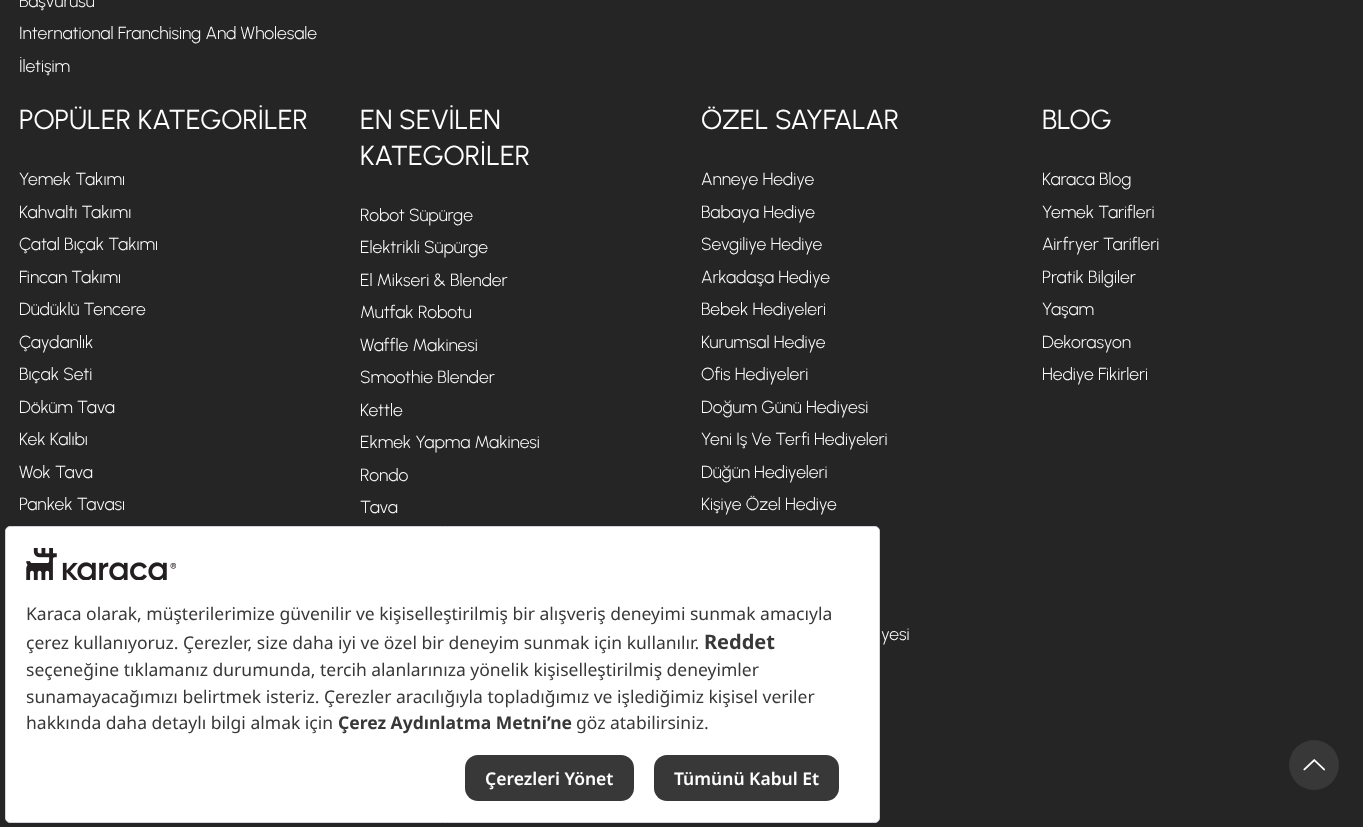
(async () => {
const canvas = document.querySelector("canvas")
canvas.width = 1363
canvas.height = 827
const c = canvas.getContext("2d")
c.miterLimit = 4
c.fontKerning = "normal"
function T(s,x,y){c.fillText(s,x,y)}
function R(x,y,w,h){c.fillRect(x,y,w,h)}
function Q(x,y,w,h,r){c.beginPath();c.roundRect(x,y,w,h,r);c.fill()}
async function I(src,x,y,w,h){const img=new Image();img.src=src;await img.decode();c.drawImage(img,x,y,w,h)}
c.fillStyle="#252525"
R(0,0,1363,827)
c.font="300 17.5px Urbanist"
c.fillStyle="#fff"
T("Başvurusu",19,7)
T("International Franchising And Wholesale",19,39)
T("İletişim",19,72)
c.font="27.5px Urbanist"
T("POPÜLER KATEGORİLER",19,129)
c.font="300 17.5px Urbanist"
T("Yemek Takımı",19,185)
T("Kahvaltı Takımı",19,218)
T("Çatal Bıçak Takımı",19,250)
T("Fincan Takımı",19,283)
T("Düdüklü Tencere",19,315)
T("Çaydanlık",19,348)
T("Bıçak Seti",19,380)
T("Döküm Tava",19,413)
T("Kek Kalıbı",19,445)
T("Wok Tava",19,478)
T("Pankek Tavası",19,510)
c.font="27.5px Urbanist"
T("EN SEVİLEN",360,129)
T("KATEGORİLER",360,165)
c.font="300 17.5px Urbanist"
T("Robot Süpürge",360,221)
T("Elektrikli Süpürge",360,253)
T("El Mikseri & Blender",360,286)
T("Mutfak Robotu",360,318)
T("Waffle Makinesi",360,351)
T("Smoothie Blender",360,383)
T("Kettle",360,416)
T("Ekmek Yapma Makinesi",360,448)
T("Rondo",360,481)
T("Tava",360,513)
c.font="27.5px Urbanist"
T("ÖZEL SAYFALAR",701,129)
c.font="300 17.5px Urbanist"
T("Anneye Hediye",701,185)
T("Babaya Hediye",701,218)
T("Sevgiliye Hediye",701,250)
T("Arkadaşa Hediye",701,283)
T("Bebek Hediyeleri",701,315)
T("Kurumsal Hediye",701,348)
T("Ofis Hediyeleri",701,380)
T("Doğum Günü Hediyesi",701,413)
T("Yeni Iş Ve Terfi Hediyeleri",701,445)
T("Düğün Hediyeleri",701,478)
T("Kişiye Özel Hediye",701,510)
T("yesi",881,640)
c.font="27.5px Urbanist"
T("BLOG",1042,129)
c.font="300 17.5px Urbanist"
T("Karaca Blog",1042,185)
T("Yemek Tarifleri",1042,218)
T("Airfryer Tarifleri",1042,250)
T("Pratik Bilgiler",1042,283)
T("Yaşam",1042,315)
T("Dekorasyon",1042,348)
T("Hediye Fikirleri",1042,380)
c.beginPath()
c.roundRect(5.5,526.5,874,296,4.5)
c.fill()
c.strokeStyle="#d1d5db"
c.stroke()
await I("1.png",26,548,150,32)
c.font="17.5px Noto Sans"
c.fillStyle="#383838"
T("Karaca olarak, müşterilerimize güvenilir ve kişiselleştirilmiş bir alışveriş deneyimi sunmak amacıyla",26,620)
T("çerez kullanıyoruz. Çerezler, size daha iyi ve özel bir deneyim sunmak için kullanılır.",26,649)
c.font="bold 20px Noto Sans"
T("Reddet",704,649)
c.font="17.5px Noto Sans"
T("seçeneğine tıklamanız durumunda, tercih alanlarınıza yönelik kişiselleştirilmiş deneyimler",26,676)
T("sunamayacağımızı belirtmek isteriz. Çerezler aracılığıyla topladığımız ve işlediğimiz kişisel veriler",26,703)
T("hakkında daha detaylı bilgi almak için",26,729)
c.font="bold 17.5px Noto Sans"
T("Çerez Aydınlatma Metni’ne",338,729)
c.font="17.5px Noto Sans"
T("göz atabilirsiniz.",576,729)
Q(465,755,169,46,13)
c.font="600 17.5px Noto Sans"
c.fillStyle="#fff"
T("Çerezleri Yönet",485,785)
c.fillStyle="#383838"
Q(654,755,185,46,13)
c.fillStyle="#fff"
T("Tümünü Kabul Et",674,785)
c.fillStyle="#383838"
c.beginPath()
c.arc(1314,765,25,0,7)
c.fill()
await I("2.png",1303,759,22,12)
})()
